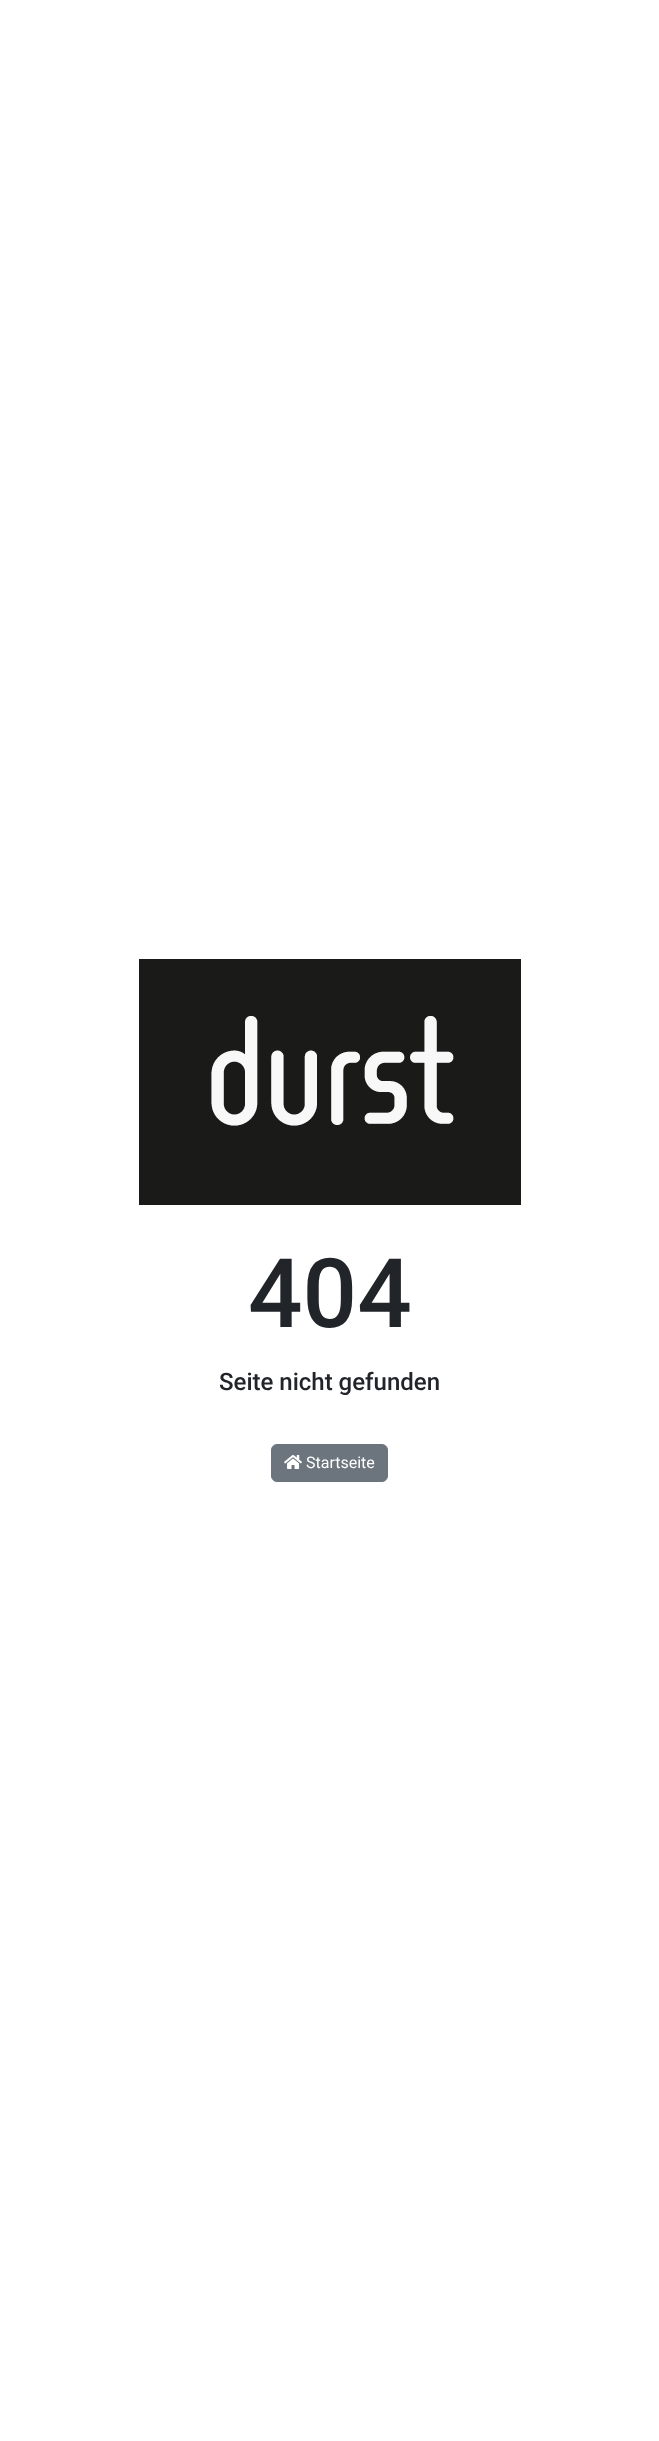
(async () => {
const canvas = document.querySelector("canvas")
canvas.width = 659
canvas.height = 2441
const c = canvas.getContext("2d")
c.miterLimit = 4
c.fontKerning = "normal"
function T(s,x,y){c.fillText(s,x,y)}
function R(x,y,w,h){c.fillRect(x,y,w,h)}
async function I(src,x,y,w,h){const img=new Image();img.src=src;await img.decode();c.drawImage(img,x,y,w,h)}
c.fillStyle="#fff"
R(0,0,659,2441)
await I("1.png",139,959,382,246)
c.font="500 96px Roboto"
c.fillStyle="#212529"
T("404",248,1327)
c.font="500 24px Roboto"
T("Seite nicht gefunden",219,1390)
c.fillStyle="#6c757d"
c.beginPath()
c.roundRect(271.5,1444.5,116,37,5.5)
c.fill()
c.strokeStyle="#6c757d"
c.stroke()
await I("2.png",284,1455,18,14)
c.font="16px Roboto"
c.fillStyle="#fff"
T("Startseite",306,1468)
})()
